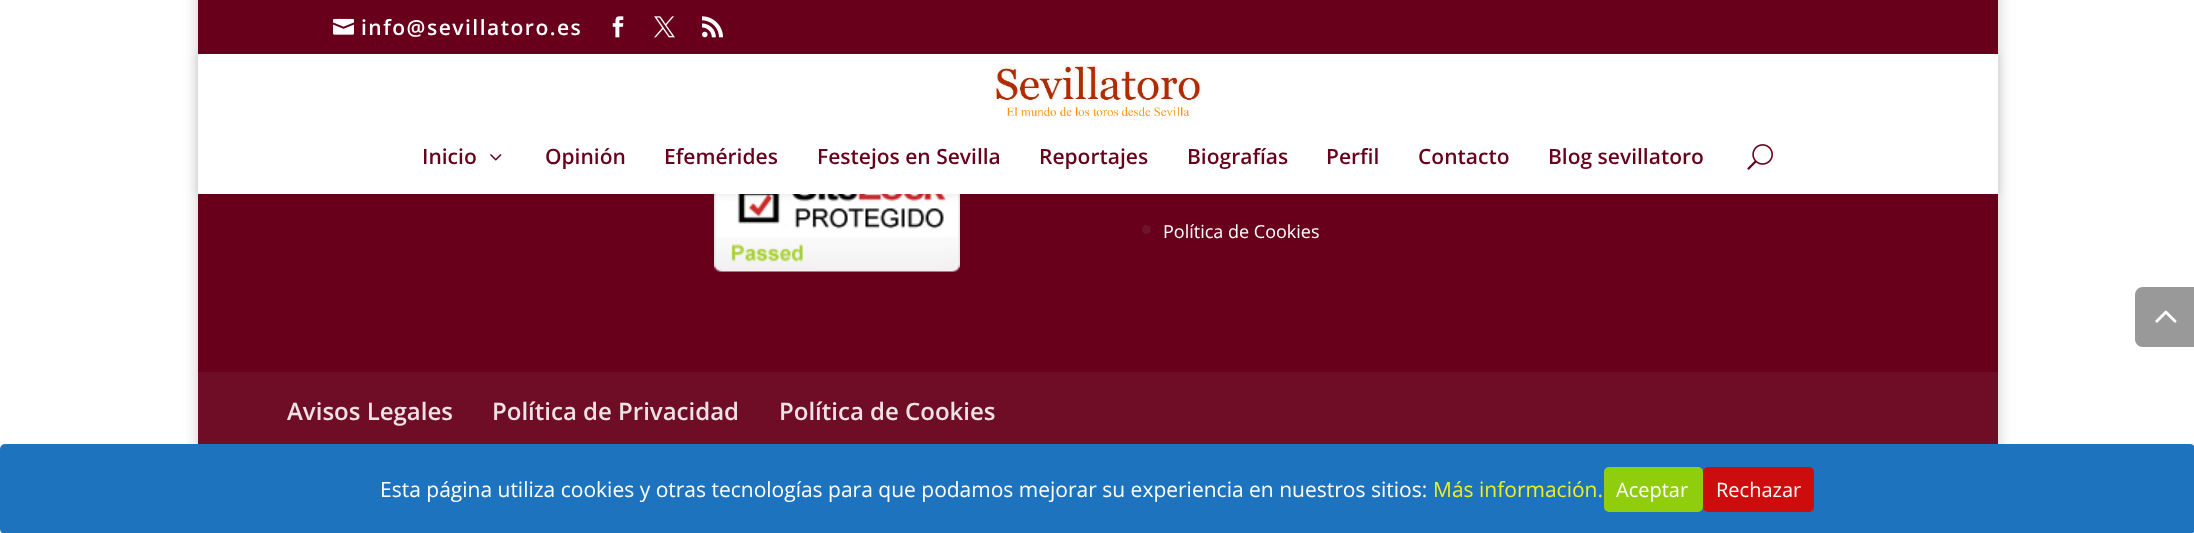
(async () => {
const canvas = document.querySelector("canvas")
canvas.width = 2194
canvas.height = 533
const c = canvas.getContext("2d")
c.miterLimit = 4
c.fontKerning = "normal"
function T(s,x,y){c.fillText(s,x,y)}
function R(x,y,w,h){c.fillRect(x,y,w,h)}
function Q(x,y,w,h,r){c.beginPath();c.roundRect(x,y,w,h,r);c.fill()}
async function I(src,x,y,w,h){const img=new Image();img.src=src;await img.decode();c.drawImage(img,x,y,w,h)}
let path
c.fillStyle="#fff"
R(0,0,2194,533)
c.fillStyle="#00000033"
c.filter="blur(7.5px)"
c.beginPath()
c.rect(198,-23,1800,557)
c.fill()
c.filter="none"
c.fillStyle="#68001b"
R(198,194,1800,178)
await I("8.png",714,194,246,78)
c.fillStyle="#0000001a"
c.filter="blur(5px)"
c.beginPath()
c.rect(198,54,1800,140)
c.fill()
c.filter="none"
c.fillStyle="#68001b"
R(198,0,1800,54)
await I("1.png",333,18,21,17)
c.letterSpacing="1.5px"
c.font="600 21px Open Sans"
c.fillStyle="#fff"
T("info@sevillatoro.es",361,35)
await I("2.png",612,16,12,22)
await I("3.png",654,16,21,22)
await I("4.png",702,16,21,22)
R(198,54,1800,140)
await I("5.png",994,64,208,53)
c.letterSpacing="0px"
c.fillStyle="#68001b"
T("Inicio",422,164)
await I("6.png",490,154,12,7)
T("Opinión",545,164)
T("Efemérides",664,164)
T("Festejos en Sevilla",817,164)
T("Reportajes",1039,164)
T("Biografías",1187,164)
T("Perfil",1326,164)
T("Contacto",1418,164)
T("Blog sevillatoro",1548,164)
await I("7.png",1747,144,26,26)
c.fillStyle="#6d1429"
c.beginPath()
c.arc(1146.5,229.5,4.5,0,7)
c.fill()
c.font="18px Open Sans"
c.fillStyle="#fff"
T("Política de Cookies",1163,238)
c.fillStyle="#700d26"
R(198,372,1800,72)
c.font="600 24px Open Sans"
c.fillStyle="#eee2e5"
T("Avisos Legales",287,420)
T("Política de Privacidad",492,420)
T("Política de Cookies",779,420)
c.fillStyle="#999"
path = new Path2D("M2143 287h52v60h-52c-4.5 0-8-3.5-8-8v-44c0-4.5 3.5-8 8-8z")
c.fill(path)
await I("9.png",2155,310,22,13)
c.fillStyle="#1e73be"
Q(0,444,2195,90,5)
c.font="21px Open Sans"
c.fillStyle="#fff"
T("Esta página utiliza cookies y otras tecnologías para que podamos mejorar su experiencia en nuestros sitios:",380,497)
c.fillStyle="#ee2"
T("Más información.",1433,497)
c.fillStyle="#90cd0d"
Q(1604,467,99,45,5)
c.font="20px Open Sans"
c.fillStyle="#fff"
T("Aceptar",1616,497)
c.fillStyle="#cd0d0d"
Q(1703,467,111,45,5)
c.fillStyle="#fff"
T("Rechazar",1716,497)
})()
